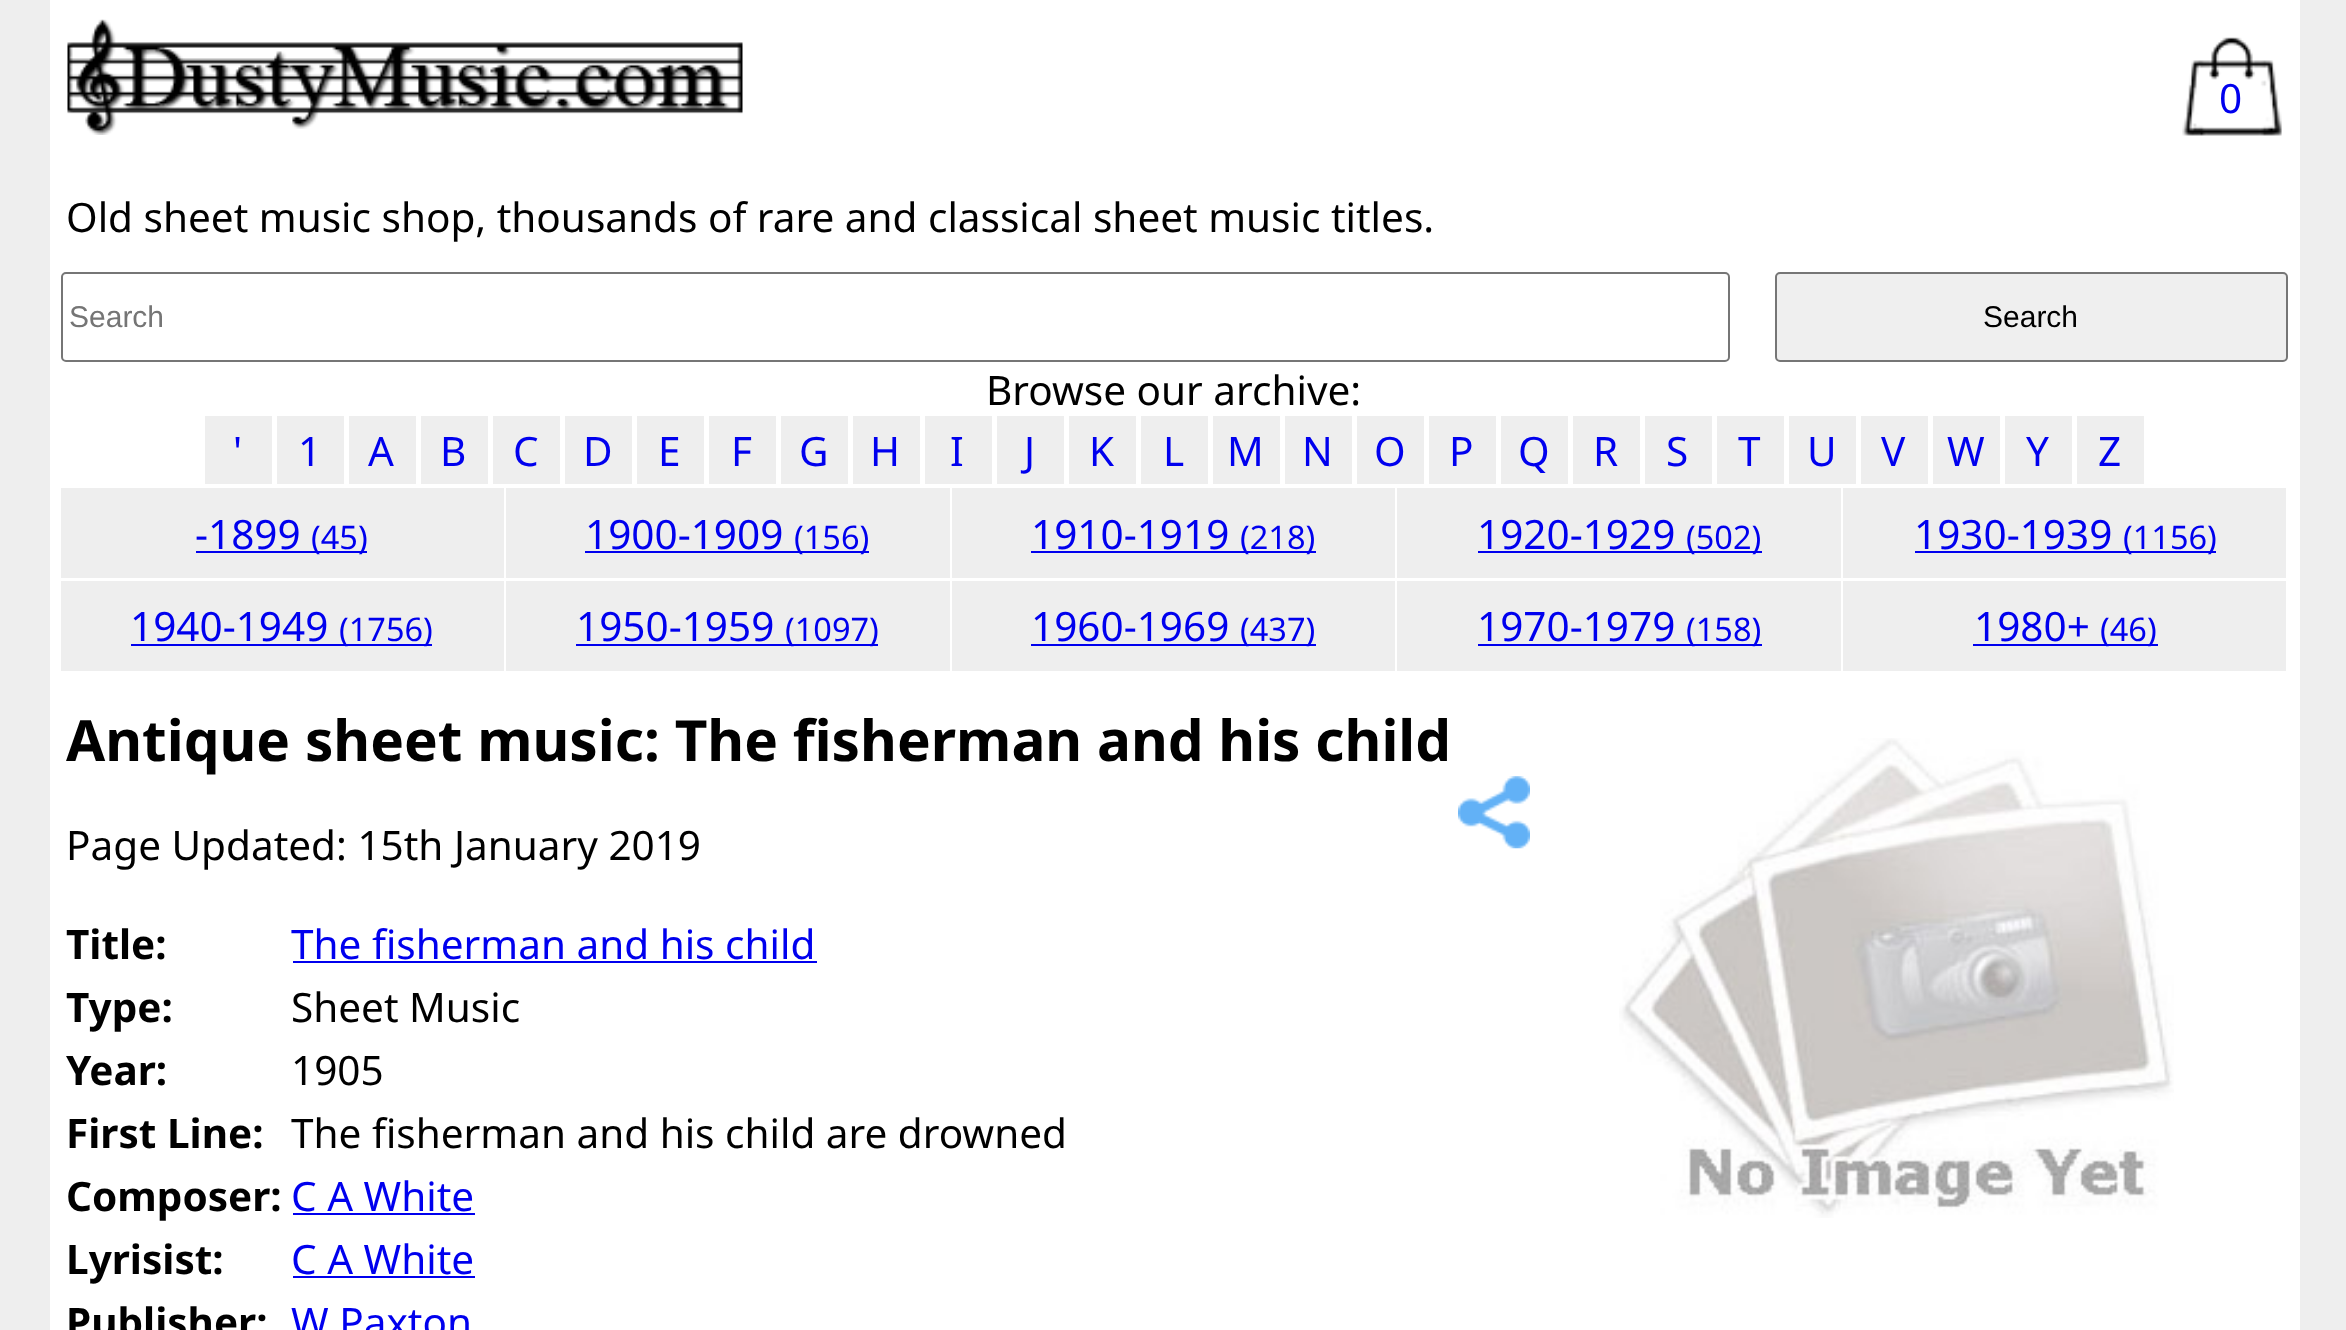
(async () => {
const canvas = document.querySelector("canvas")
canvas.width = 2346
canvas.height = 1330
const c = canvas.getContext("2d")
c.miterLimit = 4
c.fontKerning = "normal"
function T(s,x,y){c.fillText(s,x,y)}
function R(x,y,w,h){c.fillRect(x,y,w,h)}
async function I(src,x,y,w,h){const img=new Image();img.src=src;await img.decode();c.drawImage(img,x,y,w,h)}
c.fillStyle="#eee"
R(0,0,2346,1330)
c.fillStyle="#fff"
R(50,0,2250,1330)
await I("1.png",67,19,676,116)
await I("2.png",2182,37,100,99)
c.font="40.5px Noto Sans"
c.fillStyle="#00e"
T("0",2219,113)
c.fillStyle="#000"
T("Old sheet music shop, thousands of rare and classical sheet music titles.",66,232)
c.beginPath()
c.roundRect(62,273,1667,88,4)
c.strokeStyle="#767676"
c.lineWidth=2
c.stroke()
c.font="30px Liberation Sans"
c.fillStyle="#757575"
T("Search",69,327)
c.fillStyle="#efefef"
c.beginPath()
c.roundRect(1776,273,511,88,4)
c.fill()
c.stroke()
c.fillStyle="#000"
T("Search",1983,327)
c.font="40.5px Noto Sans"
T("Browse our archive:",986,405)
c.fillStyle="#eee"
R(205,416,67,68)
c.fillStyle="#00e"
T("'",233,466)
c.fillStyle="#eee"
R(277,416,67,68)
c.fillStyle="#00e"
T("1",298,466)
c.fillStyle="#eee"
R(349,416,67,68)
c.fillStyle="#00e"
T("A",368,466)
c.fillStyle="#eee"
R(421,416,67,68)
c.fillStyle="#00e"
T("B",440,466)
c.fillStyle="#eee"
R(493,416,67,68)
c.fillStyle="#00e"
T("C",513,466)
c.fillStyle="#eee"
R(565,416,67,68)
c.fillStyle="#00e"
T("D",583,466)
c.fillStyle="#eee"
R(637,416,67,68)
c.fillStyle="#00e"
T("E",658,466)
c.fillStyle="#eee"
R(709,416,67,68)
c.fillStyle="#00e"
T("F",731,466)
c.fillStyle="#eee"
R(781,416,67,68)
c.fillStyle="#00e"
T("G",799,466)
c.fillStyle="#eee"
R(853,416,67,68)
c.fillStyle="#00e"
T("H",870,466)
c.fillStyle="#eee"
R(925,416,67,68)
c.fillStyle="#00e"
T("I",950,466)
c.fillStyle="#eee"
R(997,416,67,68)
c.fillStyle="#00e"
T("J",1024,466)
c.fillStyle="#eee"
R(1069,416,67,68)
c.fillStyle="#00e"
T("K",1089,466)
c.fillStyle="#eee"
R(1141,416,67,68)
c.fillStyle="#00e"
T("L",1163,466)
c.fillStyle="#eee"
R(1213,416,67,68)
c.fillStyle="#00e"
T("M",1227,466)
c.fillStyle="#eee"
R(1285,416,67,68)
c.fillStyle="#00e"
T("N",1302,466)
c.fillStyle="#eee"
R(1357,416,67,68)
c.fillStyle="#00e"
T("O",1374,466)
c.fillStyle="#eee"
R(1429,416,67,68)
c.fillStyle="#00e"
T("P",1449,466)
c.fillStyle="#eee"
R(1501,416,67,68)
c.fillStyle="#00e"
T("Q",1518,466)
c.fillStyle="#eee"
R(1573,416,67,68)
c.fillStyle="#00e"
T("R",1593,466)
c.fillStyle="#eee"
R(1645,416,67,68)
c.fillStyle="#00e"
T("S",1666,466)
c.fillStyle="#eee"
R(1717,416,67,68)
c.fillStyle="#00e"
T("T",1738,466)
c.fillStyle="#eee"
R(1789,416,67,68)
c.fillStyle="#00e"
T("U",1807,466)
c.fillStyle="#eee"
R(1861,416,67,68)
c.fillStyle="#00e"
T("V",1881,466)
c.fillStyle="#eee"
R(1933,416,67,68)
c.fillStyle="#00e"
T("W",1947,466)
c.fillStyle="#eee"
R(2005,416,67,68)
c.fillStyle="#00e"
T("Y",2026,466)
c.fillStyle="#eee"
R(2077,416,67,68)
c.fillStyle="#00e"
T("Z",2098,466)
c.fillStyle="#eee"
R(61,488,443,90)
c.fillStyle="#00e"
T("-1899",195,549)
R(196,551,171,2)
c.font="32.5px Noto Sans"
T("(45)",311,549)
c.fillStyle="#eee"
R(506,488,444,90)
c.font="40.5px Noto Sans"
c.fillStyle="#00e"
T("1900-1909",585,549)
R(585,551,284,2)
c.font="32.5px Noto Sans"
T("(156)",794,549)
c.fillStyle="#eee"
R(952,488,443,90)
c.font="40.5px Noto Sans"
c.fillStyle="#00e"
T("1910-1919",1031,549)
R(1031,551,285,2)
c.font="32.5px Noto Sans"
T("(218)",1240,549)
c.fillStyle="#eee"
R(1397,488,444,90)
c.font="40.5px Noto Sans"
c.fillStyle="#00e"
T("1920-1929",1477,549)
R(1478,551,284,2)
c.font="32.5px Noto Sans"
T("(502)",1686,549)
c.fillStyle="#eee"
R(1843,488,443,90)
c.font="40.5px Noto Sans"
c.fillStyle="#00e"
T("1930-1939",1914,549)
R(1915,551,301,2)
c.font="32.5px Noto Sans"
T("(1156)",2123,549)
c.fillStyle="#eee"
R(61,581,443,90)
c.font="40.5px Noto Sans"
c.fillStyle="#00e"
T("1940-1949",130,641)
R(131,644,301,2)
c.font="32.5px Noto Sans"
T("(1756)",339,641)
c.fillStyle="#eee"
R(506,581,444,90)
c.font="40.5px Noto Sans"
c.fillStyle="#00e"
T("1950-1959",576,641)
R(576,644,302,2)
c.font="32.5px Noto Sans"
T("(1097)",785,641)
c.fillStyle="#eee"
R(952,581,443,90)
c.font="40.5px Noto Sans"
c.fillStyle="#00e"
T("1960-1969",1031,641)
R(1031,644,285,2)
c.font="32.5px Noto Sans"
T("(437)",1240,641)
c.fillStyle="#eee"
R(1397,581,444,90)
c.font="40.5px Noto Sans"
c.fillStyle="#00e"
T("1970-1979",1477,641)
R(1478,644,284,2)
c.font="32.5px Noto Sans"
T("(158)",1686,641)
c.fillStyle="#eee"
R(1843,581,443,90)
c.font="40.5px Noto Sans"
c.fillStyle="#00e"
T("1980+",1974,641)
R(1973,644,185,2)
c.font="32.5px Noto Sans"
T("(46)",2100,641)
c.font="bold 56.7px Noto Sans"
c.fillStyle="#000"
T("Antique sheet music: The fisherman and his child",66,761)
c.font="40.5px Noto Sans"
T("Page Updated: 15th January 2019",66,860)
await I("3.png",1458,776,72,73)
c.font="bold 40.5px Noto Sans"
T("Title:",66,959)
c.font="40.5px Noto Sans"
c.fillStyle="#00e"
T("The fisherman and his child",291,959)
R(293,961,524,2)
c.font="bold 40.5px Noto Sans"
c.fillStyle="#000"
T("Type:",66,1022)
c.font="40.5px Noto Sans"
T("Sheet Music",291,1022)
c.font="bold 40.5px Noto Sans"
T("Year:",66,1085)
c.font="40.5px Noto Sans"
T("1905",291,1085)
c.font="bold 40.5px Noto Sans"
T("First Line:",66,1148)
c.font="40.5px Noto Sans"
T("The fisherman and his child are drowned",291,1148)
c.font="bold 40.5px Noto Sans"
T("Composer:",66,1211)
c.font="40.5px Noto Sans"
c.fillStyle="#00e"
T("C A White",291,1211)
R(293,1213,182,2)
c.font="bold 40.5px Noto Sans"
c.fillStyle="#000"
T("Lyrisist:",66,1274)
c.font="40.5px Noto Sans"
c.fillStyle="#00e"
T("C A White",291,1274)
R(293,1276,182,2)
c.font="bold 40.5px Noto Sans"
c.fillStyle="#000"
T("Publisher:",66,1337)
c.font="40.5px Noto Sans"
c.fillStyle="#00e"
T("W Paxton",291,1337)
await I("4.png",1619,738,555,480)
})()
